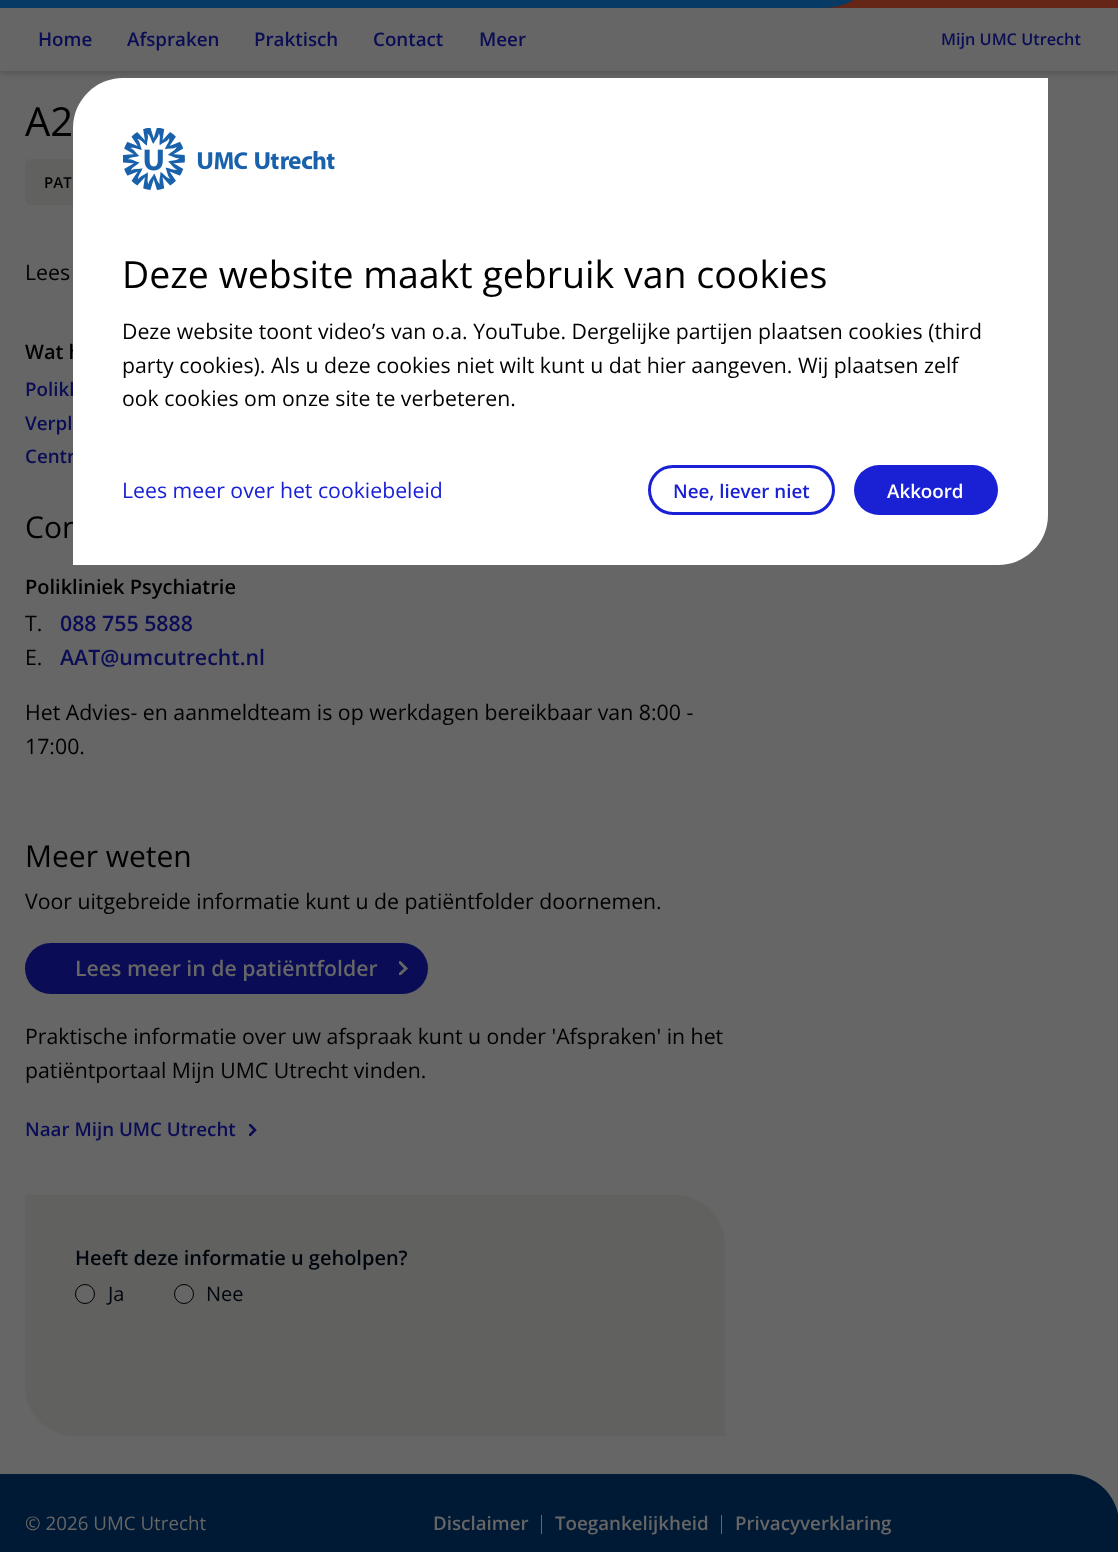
(async () => {
const canvas = document.querySelector("canvas")
canvas.width = 1118
canvas.height = 1552
const c = canvas.getContext("2d")
c.miterLimit = 4
c.fontKerning = "normal"
function T(s,x,y){c.fillText(s,x,y)}
function R(x,y,w,h){c.fillRect(x,y,w,h)}
function Q(x,y,w,h,r){c.beginPath();c.roundRect(x,y,w,h,r);c.fill()}
async function I(src,x,y,w,h){const img=new Image();img.src=src;await img.decode();c.drawImage(img,x,y,w,h)}
let path
c.fillStyle="#666"
R(0,0,1118,1552)
c.fillStyle="#00000026"
c.filter="blur(2.5px)"
c.beginPath()
c.rect(0,-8,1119,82)
c.fill()
c.filter="none"
c.fillStyle="#652617"
R(824,0,294,8)
c.fillStyle="#073a64"
path = new Path2D("M0-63h886v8c0 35-28 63-63 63h-823z")
c.fill(path)
c.fillStyle="#666"
R(0,8,1118,63)
c.font="600 18.75px Open Sans"
c.fillStyle="#0a0d55"
T("Home",38,46)
T("Afspraken",127,46)
T("Praktisch",254,46)
T("Contact",373,46)
T("Meer",479,46)
c.font="600 16.25px Open Sans"
T("Mijn UMC Utrecht",941,45)
c.font="40px Open Sans"
c.fillStyle="#000"
T("A2",25,136)
c.fillStyle="#616160"
Q(25,159,230,46,6)
c.font="600 15px Open Sans"
c.fillStyle="#000"
T("PAT",44,188)
c.font="21.25px Open Sans"
T("Lees",25,280)
c.font="600 20px Open Sans"
T("Wat h",25,359)
c.font="600 18.75px Open Sans"
c.fillStyle="#0a0d55"
T("Polikl",25,396)
T("Verpl",25,430)
T("Centr",25,463)
c.font="30px Open Sans"
c.fillStyle="#000"
T("Con",25,538)
c.font="600 20px Open Sans"
T("Polikliniek Psychiatrie",25,594)
c.font="21.3px Open Sans"
T("T.",25,631)
c.font="600 21.3px Open Sans"
c.fillStyle="#0a0d55"
T("088 755 5888",60,631)
c.font="21.3px Open Sans"
c.fillStyle="#000"
T("E.",25,665)
c.font="600 21.3px Open Sans"
c.fillStyle="#0a0d55"
T("AAT@umcutrecht.nl",60,665)
c.font="21.3px Open Sans"
c.fillStyle="#000"
T("Het Advies- en aanmeldteam is op werkdagen bereikbaar van 8:00 -",25,720)
T("17:00.",25,754)
c.font="30px Open Sans"
T("Meer weten",25,867)
c.font="21.25px Open Sans"
T("Voor uitgebreide informatie kunt u de patiëntfolder doornemen.",25,909)
c.fillStyle="#0a0d55"
Q(25,943,403,51,25.5)
c.save()
c.beginPath()
c.rect(399,961,10,14)
c.clip()
path = new Path2D("M400 974l6-5.5l-6-6")
c.strokeStyle="#666"
c.lineWidth=2.9
c.lineCap="round"
c.stroke(path)
c.restore()
c.font="600 21.25px Open Sans"
c.fillStyle="#666"
T("Lees meer in de patiëntfolder",75,976)
c.font="21.25px Open Sans"
c.fillStyle="#000"
T("Praktische informatie over uw afspraak kunt u onder 'Afspraken' in het",25,1044)
T("patiëntportaal Mijn UMC Utrecht vinden.",25,1078)
c.font="600 18.75px Open Sans"
c.fillStyle="#0a0d55"
T("Naar Mijn UMC Utrecht",25,1136)
c.save()
c.beginPath()
c.rect(249,1124,9,12)
c.clip()
path = new Path2D("M250 1135l5-5l-5-5")
c.strokeStyle="#0a0d55"
c.lineWidth=2.5
c.lineCap="round"
c.stroke(path)
c.restore()
c.fillStyle="#616160"
c.beginPath()
c.roundRect(25,1195,700,241,[0,50,0,50])
c.fill()
c.font="600 20px Open Sans"
c.fillStyle="#00060d"
T("Heeft deze informatie u geholpen?",75,1265)
c.fillStyle="#666"
c.beginPath()
c.arc(85,1294,9.5,0,7)
c.fill()
c.strokeStyle="#000"
c.stroke()
c.font="20px Open Sans"
c.fillStyle="#00060d"
T("Ja",108,1301)
c.fillStyle="#666"
c.beginPath()
c.arc(184,1294,9.5,0,7)
c.fill()
c.stroke()
c.fillStyle="#00060d"
T("Nee",206,1301)
c.fillStyle="#fff"
c.beginPath()
c.roundRect(73,78,975,487,[50,0,50,0])
c.fill()
await I("1.png",123,128,212,62)
c.font="37.5px Open Sans"
c.fillStyle="#000"
T("Deze website maakt gebruik van cookies",122,288)
c.font="21.25px Open Sans"
T("Deze website toont video’s van o.a. YouTube. Dergelijke partijen plaatsen cookies (third",122,339)
T("party cookies). Als u deze cookies niet wilt kunt u dat hier aangeven. Wij plaatsen zelf",122,373)
T("ook cookies om onze site te verbeteren.",122,406)
c.fillStyle="#1a21d5"
T("Lees meer over het cookiebeleid",122,498)
c.beginPath()
c.roundRect(649.5,466.5,184,47,23.5)
c.strokeStyle="#1a21d5"
c.lineWidth=3
c.stroke()
c.font="600 18.75px Open Sans"
T("Nee, liever niet",673,498)
Q(854,465,144,50,25)
c.fillStyle="#fff"
T("Akkoord",887,498)
c.fillStyle="#001a35"
path = new Path2D("M0 1474h1069c27.5 0 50 22.5 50 50v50h-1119z")
c.fill(path)
c.font="18.75px Open Sans"
c.fillStyle="#666"
T("© 2026 UMC Utrecht",25,1530)
c.font="600 18.75px Open Sans"
T("Disclaimer",433,1530)
R(541,1515,1,19)
T("Toegankelijkheid",555,1530)
R(721,1515,1,19)
T("Privacyverklaring",735,1530)
})()
